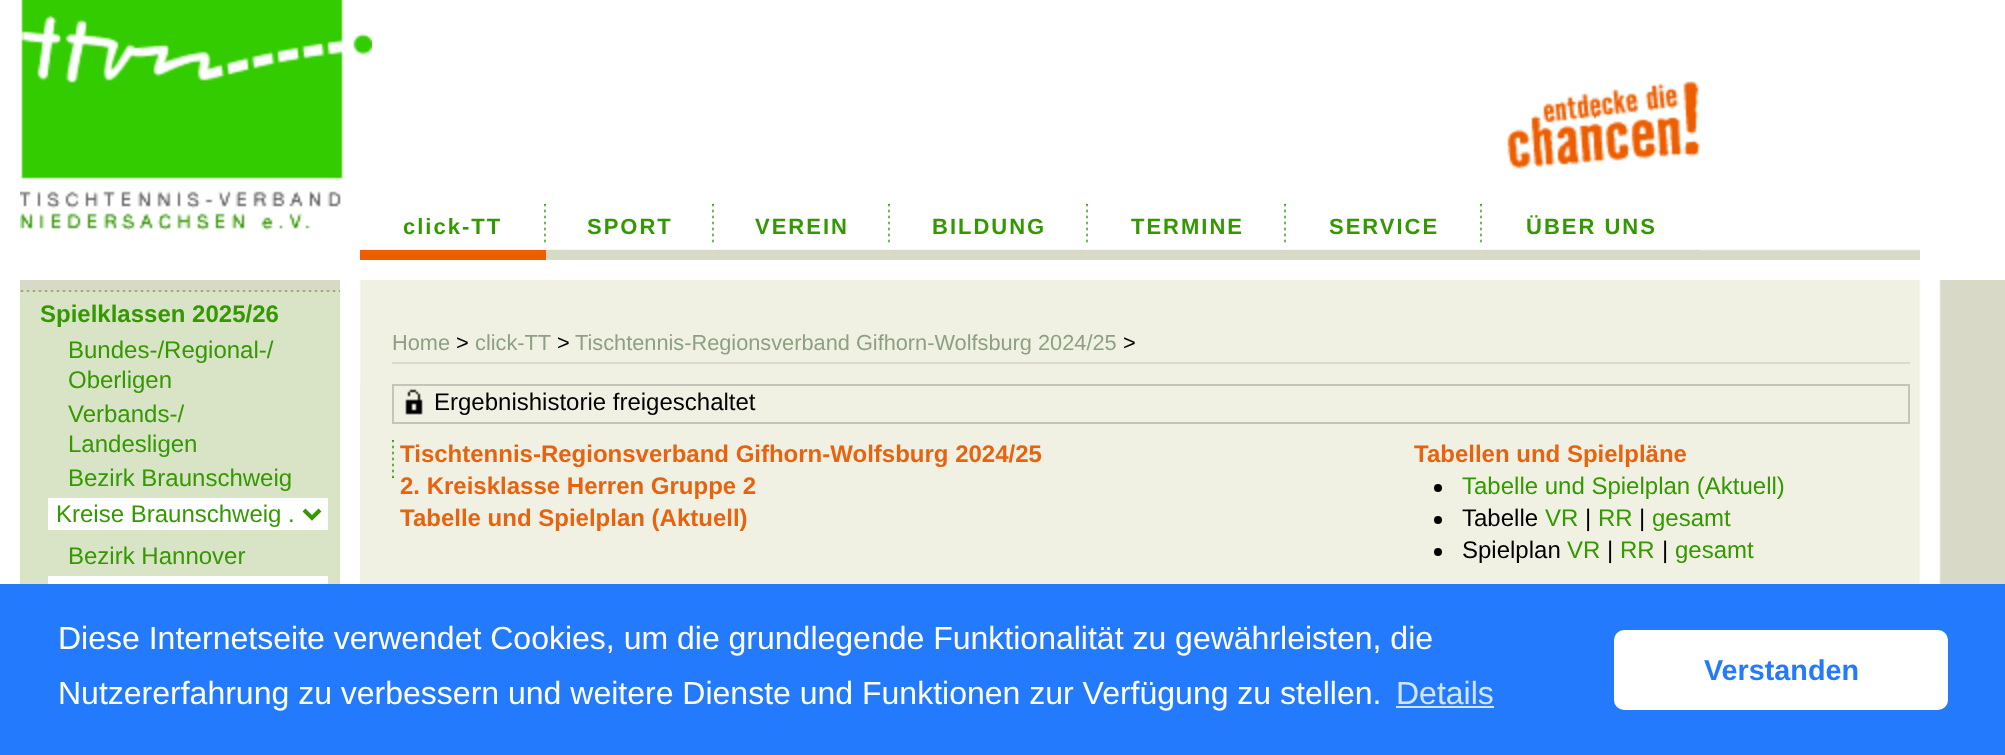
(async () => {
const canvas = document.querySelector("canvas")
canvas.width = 2005
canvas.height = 755
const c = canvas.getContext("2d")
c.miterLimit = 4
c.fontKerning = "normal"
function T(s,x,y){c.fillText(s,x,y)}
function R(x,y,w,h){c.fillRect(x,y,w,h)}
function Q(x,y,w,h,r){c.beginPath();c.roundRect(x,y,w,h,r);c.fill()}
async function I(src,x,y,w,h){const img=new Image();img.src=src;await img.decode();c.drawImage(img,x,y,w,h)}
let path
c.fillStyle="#fff"
R(0,0,2005,755)
await I("1.png",19,280,1986,304)
await I("2.png",20,0,352,230)
await I("3.png",1507,81,193,88)
await I("4.png",360,249,1560,11)
await I("5.png",544,204,2,46)
c.fillStyle="#ed5e00"
R(360,250,186,10)
c.letterSpacing="2px"
c.font="bold 22px Liberation Sans"
c.fillStyle="#349901"
T("click-TT",403,234)
await I("5.png",712,204,2,46)
c.fillStyle="#d8d9c7"
R(546,250,1154,1)
c.fillStyle="#349901"
T("SPORT",587,234)
await I("5.png",888,204,2,46)
T("VEREIN",755,234)
await I("5.png",1086,204,2,46)
T("BILDUNG",932,234)
await I("5.png",1284,204,2,46)
T("TERMINE",1131,234)
await I("5.png",1480,204,2,46)
T("SERVICE",1329,234)
T("ÜBER UNS",1526,234)
c.fillStyle="#d9d9c7"
R(20,280,320,10)
c.fillStyle="#d9e3c5"
R(20,292,320,292)
await I("6.png",20,290,320,2)
c.letterSpacing="0px"
c.font="bold 24px Liberation Sans"
c.fillStyle="#349901"
T("Spielklassen 2025/26",40,322)
c.font="24px Liberation Sans"
T("Bundes-/Regional-/",68,358)
T("Oberligen",68,388)
T("Verbands-/",68,422)
T("Landesligen",68,452)
T("Bezirk Braunschweig",68,486)
c.fillStyle="#fff"
R(48,498,280,32)
path = new Path2D("M304 510l8 8l8-8")
c.strokeStyle="#349901"
c.lineWidth=4
c.stroke(path)
c.fillStyle="#349901"
T("Kreise Braunschweig .",56,522)
T("Bezirk Hannover",68,564)
c.fillStyle="#fff"
R(48,576,280,8)
c.fillStyle="#f1f1e3"
R(360,384,1,200)
c.strokeStyle="#c5c4b9"
c.lineWidth=2
c.strokeRect(393,385,1516,38)
await I("7.png",405,389,18,26)
c.fillStyle="#000"
T("Ergebnishistorie freigeschaltet",434,410)
await I("8.png",392,440,2,38)
c.font="bold 24px Liberation Sans"
c.fillStyle="#e7630f"
T("Tischtennis-Regionsverband Gifhorn-Wolfsburg 2024/25",400,462)
T("2. Kreisklasse Herren Gruppe 2",400,494)
T("Tabelle und Spielplan (Aktuell)",400,526)
T("Tabellen und Spielpläne",1414,462)
c.fillStyle="#000"
c.beginPath()
c.arc(1438,488,4,0,7)
c.fill()
c.font="24px Liberation Sans"
c.fillStyle="#349901"
T("Tabelle und Spielplan (Aktuell)",1462,494)
c.fillStyle="#000"
c.beginPath()
c.arc(1438,520,4,0,7)
c.fill()
T("Tabelle",1462,526)
c.fillStyle="#349901"
T("VR",1545,526)
c.fillStyle="#000"
T("|",1585,526)
c.fillStyle="#349901"
T("RR",1598,526)
c.fillStyle="#000"
T("|",1639,526)
c.fillStyle="#349901"
T("gesamt",1652,526)
c.fillStyle="#000"
c.beginPath()
c.arc(1438,552,4,0,7)
c.fill()
T("Spielplan",1462,558)
c.fillStyle="#349901"
T("VR",1567,558)
c.fillStyle="#000"
T("|",1607,558)
c.fillStyle="#349901"
T("RR",1620,558)
c.fillStyle="#000"
T("|",1662,558)
c.fillStyle="#349901"
T("gesamt",1675,558)
c.fillStyle="#d9dacc"
R(392,362,1518,2)
c.font="21.75px Liberation Sans"
c.fillStyle="#8ca182"
T("Home",392,350)
c.fillStyle="#000"
T(">",456,350)
c.fillStyle="#8ca182"
T("click-TT",475,350)
c.fillStyle="#000"
T(">",557,350)
c.fillStyle="#8ca182"
T("Tischtennis-Regionsverband Gifhorn-Wolfsburg 2024/25",575,350)
c.fillStyle="#000"
T(">",1123,350)
c.fillStyle="#237afc"
R(0,584,2005,171)
c.font="32px Liberation Sans"
c.fillStyle="#fff"
T("Diese Internetseite verwendet Cookies, um die grundlegende Funktionalität zu gewährleisten, die",58,649)
T("Nutzererfahrung zu verbessern und weitere Dienste und Funktionen zur Verfügung zu stellen.",58,704)
c.fillStyle="#d3e4fe"
T("Details",1396,704)
R(1396,706,98,2)
c.fillStyle="#fff"
Q(1614,630,334,80,10)
c.font="bold 28.75px Liberation Sans"
c.fillStyle="#237afc"
T("Verstanden",1704,680)
})()
